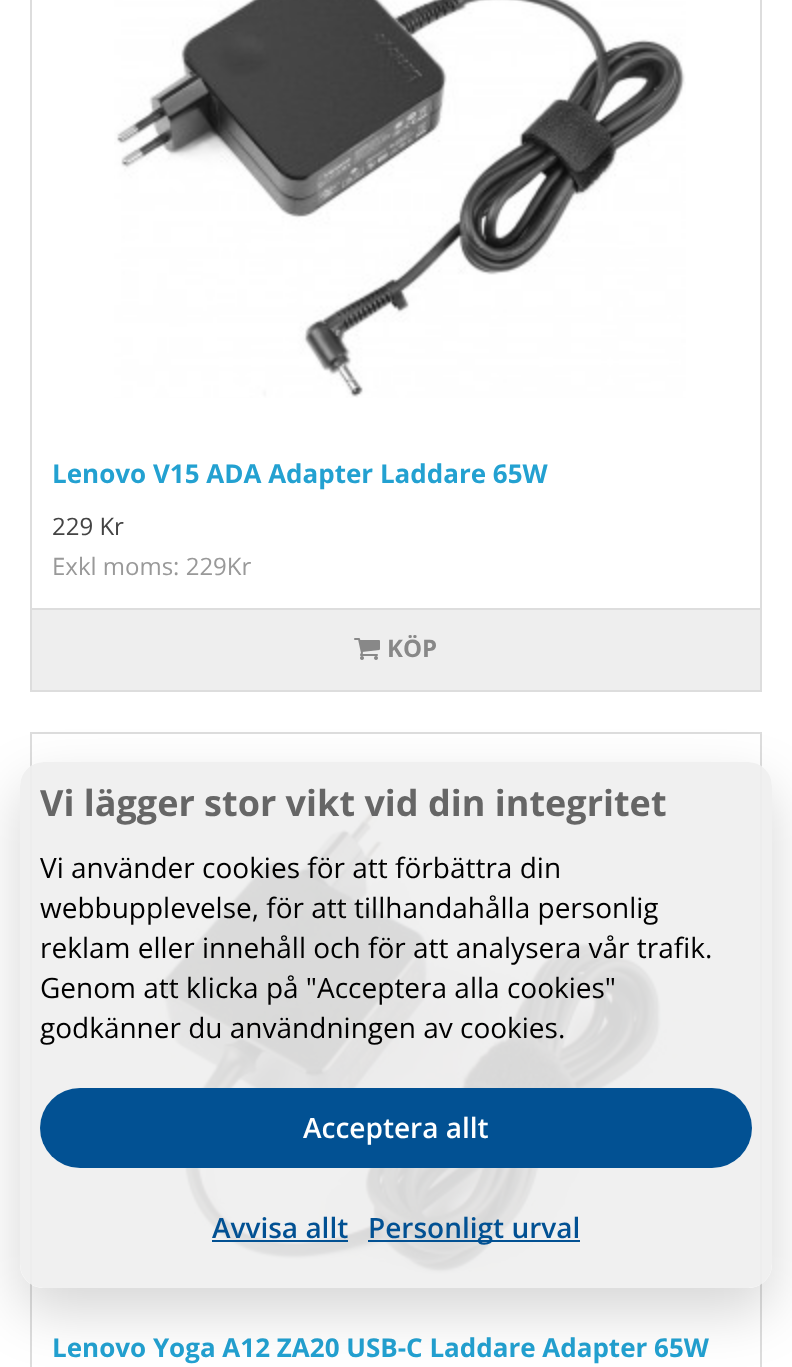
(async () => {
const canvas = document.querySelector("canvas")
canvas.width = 792
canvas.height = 1367
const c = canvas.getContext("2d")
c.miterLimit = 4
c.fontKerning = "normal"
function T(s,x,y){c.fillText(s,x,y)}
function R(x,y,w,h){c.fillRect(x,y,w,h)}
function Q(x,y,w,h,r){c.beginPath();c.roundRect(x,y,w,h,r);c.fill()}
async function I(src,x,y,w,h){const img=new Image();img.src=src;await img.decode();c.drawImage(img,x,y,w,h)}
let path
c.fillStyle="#fff"
R(0,0,792,1367)
c.strokeStyle="#ddd"
c.lineWidth=2
c.strokeRect(31,-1,730,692)
await I("1.png",114,0,572,398)
c.font="bold 26px Open Sans"
c.fillStyle="#23a1d1"
T("Lenovo V15 ADA Adapter Laddare 65W",52,483)
c.font="24px Open Sans"
c.fillStyle="#444"
T("229 Kr",52,535)
c.fillStyle="#999"
T("Exkl moms: 229Kr",52,575)
c.fillStyle="#eee"
R(32,610,728,80)
c.fillStyle="#ddd"
R(32,608,728,2)
await I("2.png",354,638,26,22)
c.font="bold 24px Open Sans"
c.fillStyle="#888"
T("KÖP",387,657)
c.strokeRect(31,733,730,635)
await I("3.png",121,802,565,475)
c.font="bold 26px Open Sans"
c.fillStyle="#23a1d1"
T("Lenovo Yoga A12 ZA20 USB-C Laddare Adapter 65W",52,1357)
c.save()
path = new Path2D("M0 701h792v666h-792zm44 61h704c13.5 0 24 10.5 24 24v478c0 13.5-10.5 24-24 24h-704c-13.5 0-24-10.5-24-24v-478c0-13.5 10.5-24 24-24z")
c.clip(path,"evenodd")
c.fillStyle="#00000029"
c.filter="blur(28px)"
c.beginPath()
c.roundRect(20,786,752,526,24)
c.fill()
c.filter="none"
c.restore()
c.fillStyle="#eeeeeee6"
Q(20,762,752,526,24)
c.font="bold 36px Open Sans"
c.fillStyle="#666"
T("Vi lägger stor vikt vid din integritet",40,816)
c.font="28px Open Sans"
c.fillStyle="#000"
T("Vi använder cookies för att förbättra din",40,878)
T("webbupplevelse, för att tillhandahålla personlig",40,918)
T("reklam eller innehåll och för att analysera vår trafik.",40,958)
T("Genom att klicka på \"Acceptera alla cookies\"",40,998)
T("godkänner du användningen av cookies.",40,1038)
c.fillStyle="#025193"
Q(40,1088,712,80,40)
c.font="600 28px Open Sans"
c.fillStyle="#fff"
T("Acceptera allt",303,1138)
c.fillStyle="#025193"
T("Avvisa allt",212,1238)
R(212,1240,136,2)
R(368,1240,212,2)
T("Personligt urval",368,1238)
})()
